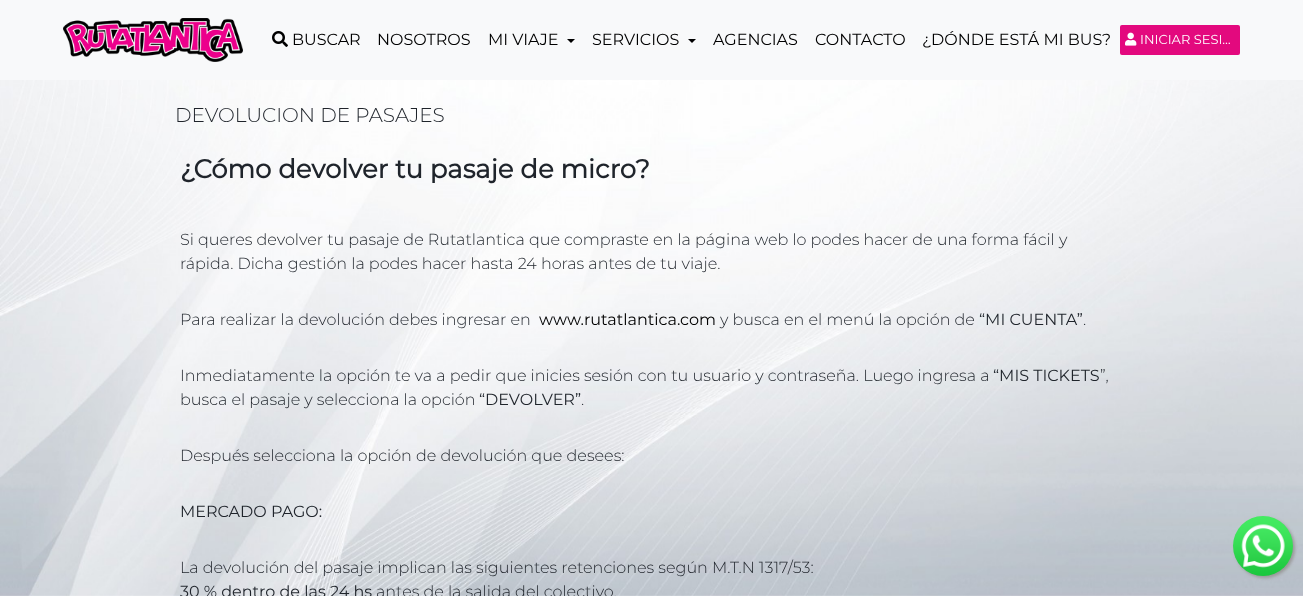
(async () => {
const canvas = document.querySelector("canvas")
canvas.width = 1303
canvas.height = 596
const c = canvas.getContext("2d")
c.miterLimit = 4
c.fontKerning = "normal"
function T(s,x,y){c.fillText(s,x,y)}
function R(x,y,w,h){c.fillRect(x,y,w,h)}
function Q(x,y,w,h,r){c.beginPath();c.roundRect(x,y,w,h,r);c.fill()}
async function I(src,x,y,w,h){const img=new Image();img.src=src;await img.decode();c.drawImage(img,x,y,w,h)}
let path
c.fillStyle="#fff"
R(0,0,1303,596)
await I("1.png",0,80,1303,516)
c.fillStyle="#f8f9fa"
R(0,0,1303,80)
await I("2.png",63,18,180,44)
await I("3.png",272,31,16,16)
c.font="16px Montserrat"
c.fillStyle="#000"
T("BUSCAR",292,45)
T("NOSOTROS",377,45)
T("MI VIAJE",488,45)
path = new Path2D("M567 39h8l-4 4z")
c.fill(path)
T("SERVICIOS",592,45)
path = new Path2D("M688 39h8l-4 4z")
c.fill(path)
T("AGENCIAS",713,45)
T("CONTACTO",815,45)
T("¿DÓNDE ESTÁ MI BUS?",922,45)
c.fillStyle="#e3097e"
Q(1120,25,120,30,2)
await I("4.png",1125,32,12,14)
c.font="13px Montserrat"
c.fillStyle="#fff"
T("INICIAR SESI…",1140,44)
c.font="300 20px Montserrat"
c.fillStyle="#1f242b"
T("DEVOLUCION DE PASAJES",175,122)
c.font="bold 26px Montserrat"
T("¿Cómo devolver tu pasaje de micro?",180,178)
c.font="300 16px Montserrat"
T("Si queres devolver tu pasaje de Rutatlantica que compraste en la página web lo podes hacer de una forma fácil y",180,245)
T("rápida. Dicha gestión la podes hacer hasta 24 horas antes de tu viaje.",180,269)
T("Para realizar la devolución debes ingresar en",180,325)
c.font="16px Montserrat"
c.fillStyle="#000"
T("www.rutatlantica.com",539,325)
c.font="300 16px Montserrat"
c.fillStyle="#1f242b"
T("y busca en el menú la opción de",720,325)
c.font="16px Montserrat"
T("“MI CUENTA”",979,325)
c.font="300 16px Montserrat"
T(".",1083,325)
T("Inmediatamente la opción te va a pedir que inicies sesión con tu usuario y contraseña. Luego ingresa a",180,381)
c.font="16px Montserrat"
T("“MIS TICKETS",993,381)
c.font="300 16px Montserrat"
T("”,",1100,381)
T("busca el pasaje y selecciona la opción",180,405)
c.font="16px Montserrat"
T("“DEVOLVER”",479,405)
c.font="300 16px Montserrat"
T(".",581,405)
T("Después selecciona la opción de devolución que desees:",180,461)
c.font="16px Montserrat"
T("MERCADO PAGO:",180,517)
c.font="300 16px Montserrat"
T("La devolución del pasaje implican las siguientes retenciones según M.T.N 1317/53:",180,573)
c.font="16px Montserrat"
T("30 % dentro de las 24 hs",180,597)
c.font="300 16px Montserrat"
T("antes de la salida del colectivo.",376,597)
c.fillStyle="#999"
c.filter="blur(1.5px)"
c.beginPath()
c.roundRect(1235,518,60,60,30)
c.fill()
c.filter="none"
await I("5.png",1233,516,60,60)
})()
